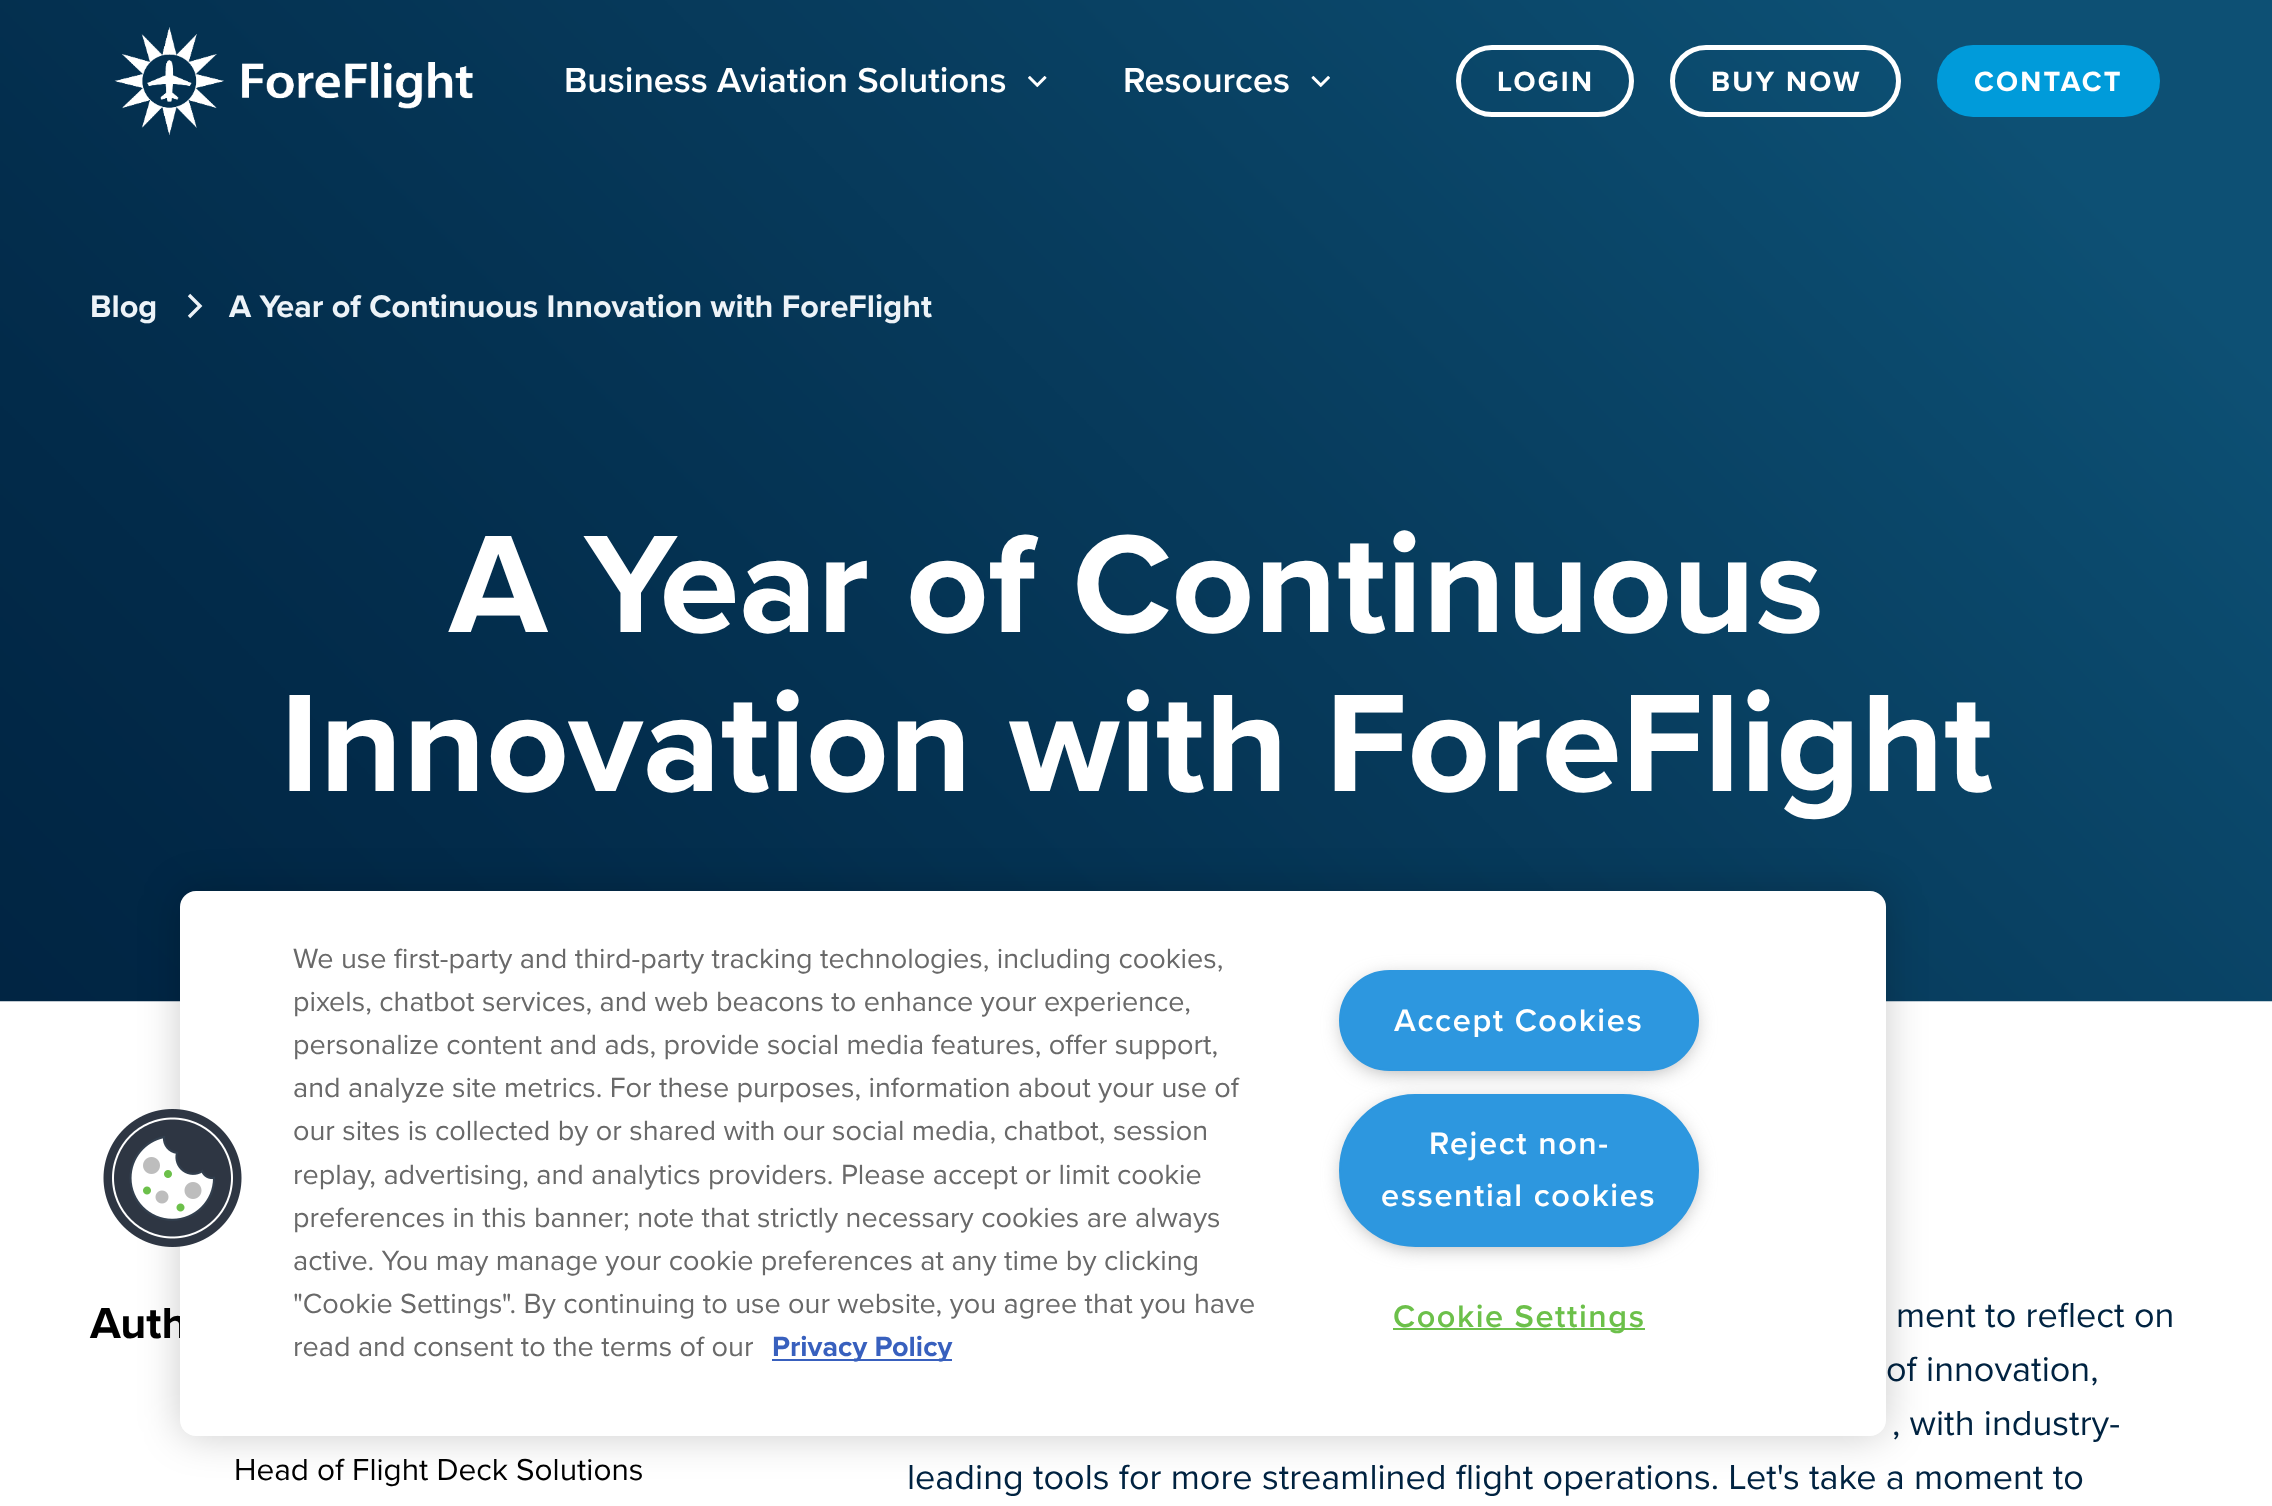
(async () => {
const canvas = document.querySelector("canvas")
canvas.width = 2272
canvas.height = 1506
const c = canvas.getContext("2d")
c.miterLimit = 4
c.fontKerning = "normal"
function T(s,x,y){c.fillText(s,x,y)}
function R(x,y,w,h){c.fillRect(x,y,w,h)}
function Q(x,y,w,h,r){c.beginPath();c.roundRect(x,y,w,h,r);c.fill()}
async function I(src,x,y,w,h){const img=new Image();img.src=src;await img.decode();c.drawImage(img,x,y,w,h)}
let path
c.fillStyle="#fff"
R(0,0,2272,1506)
await I("4.png",0,0,2272,1002)
await I("1.png",114,27,359,109)
c.font="600 36px Proxima Nova"
T("Business Aviation Solutions",564,92)
await I("2.png",1028,76,19,12)
T("Resources",1123,92)
await I("3.png",1311,76,19,12)
c.beginPath()
c.roundRect(1458.5,47.5,173,67,33.5)
c.strokeStyle="#fff"
c.lineWidth=5
c.stroke()
c.letterSpacing="2.25px"
c.font="bold 28.8px Proxima Nova"
T("LOGIN",1497,91)
c.beginPath()
c.roundRect(1672.5,47.5,226,67,33.5)
c.stroke()
T("BUY NOW",1711,91)
c.fillStyle="#009bda"
Q(1937,45,223,72,36)
c.fillStyle="#fff"
T("CONTACT",1974,91)
c.letterSpacing="0px"
c.font="bold 32.4px Proxima Nova"
c.fillStyle="#edf3f8"
T("Blog",90,317)
path = new Path2D("M189 295l11 11l-11 11")
c.strokeStyle="#edf3f8"
c.lineWidth=3.4
c.stroke(path)
T("A Year of Continuous Innovation with ForeFlight",229,317)
c.font="bold 144px Proxima Nova"
c.fillStyle="#fff"
T("A Year of Continuous",449,632)
T("Innovation with ForeFlight",280,791)
c.font="bold 45px Proxima Nova"
c.fillStyle="#000"
T("Auth",90,1338)
c.font="31.5px Proxima Nova"
T("Head of Flight Deck Solutions",234,1480)
c.font="36px Proxima Nova"
c.fillStyle="#002341"
T("ment to reflect on",1896,1327)
T("of innovation,",1886,1381)
T(", with industry-",1892,1435)
T("leading tools for more streamlined flight operations. Let's take a moment to",907,1489)
c.fillStyle="#00000033"
c.filter="blur(20px)"
c.beginPath()
c.roundRect(180,891,1706,545,16)
c.fill()
c.filter="none"
c.fillStyle="#fff"
Q(180,891,1706,545,16)
await I("5.png",103,1109,139,138)
c.font="28.8px Proxima Nova"
c.fillStyle="#696969"
T("We use first-party and third-party tracking technologies, including cookies,",293,968)
T("pixels, chatbot services, and web beacons to enhance your experience,",293,1011)
T("personalize content and ads, provide social media features, offer support,",293,1054)
T("and analyze site metrics. For these purposes, information about your use of",293,1097)
T("our sites is collected by or shared with our social media, chatbot, session",293,1140)
T("replay, advertising, and analytics providers. Please accept or limit cookie",293,1184)
T("preferences in this banner; note that strictly necessary cookies are always",293,1227)
T("active. You may manage your cookie preferences at any time by clicking",293,1270)
T("\"Cookie Settings\". By continuing to use our website, you agree that you have",293,1313)
T("read and consent to the terms of our",293,1356)
c.fillStyle="#3860be"
R(772,1359,180,2)
c.font="bold 28.8px Proxima Nova"
T("Privacy Policy",772,1356)
c.fillStyle="#999"
c.filter="blur(11px)"
c.beginPath()
c.roundRect(1346,981,346,88,44)
c.fill()
c.filter="none"
c.fillStyle="#2d97df"
c.beginPath()
c.roundRect(1340,971,358,99,49.5)
c.fill()
c.strokeStyle="#2d97df"
c.lineWidth=2
c.stroke()
c.letterSpacing="1.6px"
c.font="600 32.4px Proxima Nova"
c.fillStyle="#fff"
T("Accept Cookies",1394,1031)
c.fillStyle="#999"
c.filter="blur(11px)"
c.beginPath()
c.roundRect(1346,1105,346,139,69.5)
c.fill()
c.filter="none"
c.fillStyle="#2d97df"
c.beginPath()
c.roundRect(1340,1095,358,151,75.5)
c.fill()
c.stroke()
c.fillStyle="#fff"
T("Reject non-",1429,1154)
T("essential cookies",1381,1206)
c.fillStyle="#6cc04a"
R(1393,1328,252,2)
T("Cookie Settings",1393,1327)
})()
